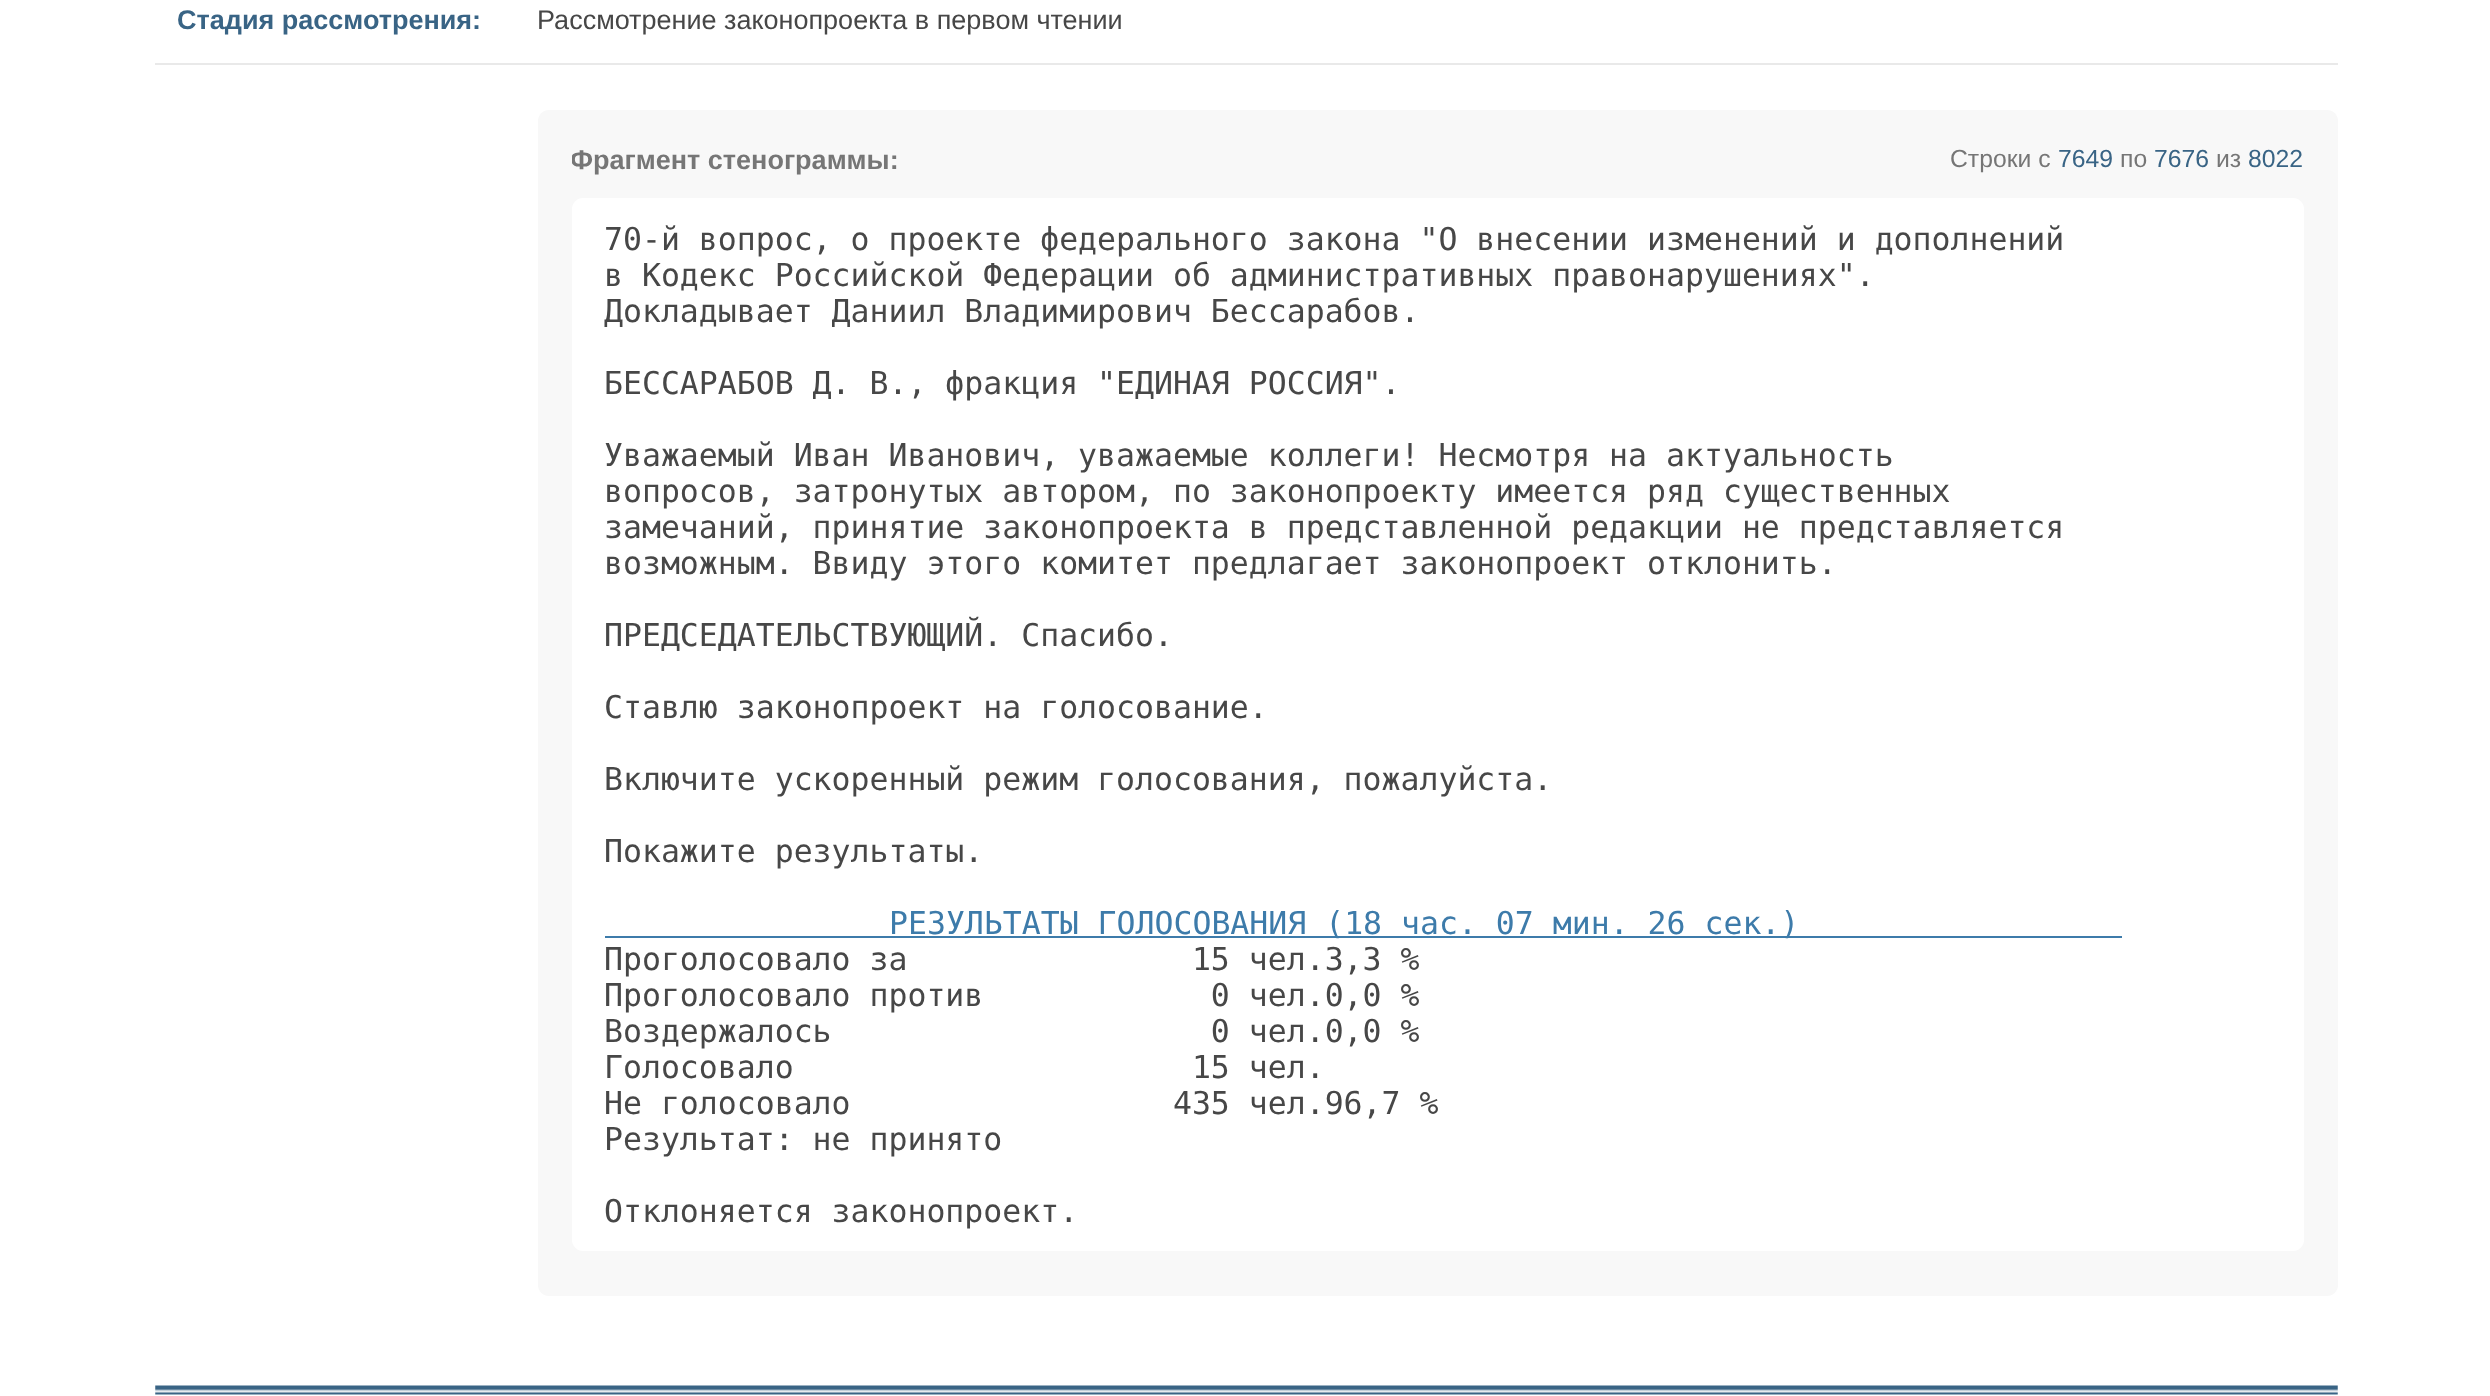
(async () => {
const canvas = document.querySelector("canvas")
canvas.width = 2490
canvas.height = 1396
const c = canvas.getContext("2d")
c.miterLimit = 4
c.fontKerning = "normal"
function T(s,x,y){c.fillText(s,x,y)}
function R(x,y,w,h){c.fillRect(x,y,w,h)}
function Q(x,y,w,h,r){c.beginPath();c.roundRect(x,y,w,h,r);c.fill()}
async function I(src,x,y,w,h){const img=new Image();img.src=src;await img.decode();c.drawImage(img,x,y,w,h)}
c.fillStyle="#fff"
R(0,0,2490,1396)
c.fillStyle="#e9e9e9"
R(155,63,2183,2)
c.font="bold 27px Liberation Sans"
c.fillStyle="#396485"
T("Стадия рассмотрения:",177,29)
c.font="27px Liberation Sans"
c.fillStyle="#474747"
T("Рассмотрение законопроекта в первом чтении",537,29)
c.fillStyle="#f8f8f8"
Q(538,110,1800,1186,11)
c.save()
c.beginPath()
c.rect(572,144,1732,54)
c.clip()
c.font="bold 27px Liberation Sans"
c.fillStyle="#767676"
T("Фрагмент стенограммы:",570,169)
c.restore()
c.font="24.75px Liberation Sans"
c.fillStyle="#767676"
T("Строки с",1950,167)
c.fillStyle="#396485"
T("7649",2058,167)
c.fillStyle="#767676"
T("по",2120,167)
c.fillStyle="#396485"
T("7676",2154,167)
c.fillStyle="#767676"
T("из",2216,167)
c.fillStyle="#396485"
T("8022",2248,167)
c.fillStyle="#fff"
Q(572,198,1732,1053,11)
c.font="31.5px DejaVu Sans Mono"
c.fillStyle="#474747"
T("70-й вопрос, о проекте федерального закона \"О внесении изменений и дополнений",604,250)
T("в Кодекс Российской Федерации об административных правонарушениях\".",604,286)
T("Докладывает Даниил Владимирович Бессарабов.",604,322)
T("БЕССАРАБОВ Д. В., фракция \"ЕДИНАЯ РОССИЯ\".",604,394)
T("Уважаемый Иван Иванович, уважаемые коллеги! Несмотря на актуальность",604,466)
T("вопросов, затронутых автором, по законопроекту имеется ряд существенных",604,502)
T("замечаний, принятие законопроекта в представленной редакции не представляется",604,538)
T("возможным. Ввиду этого комитет предлагает законопроект отклонить.",604,574)
T("ПРЕДСЕДАТЕЛЬСТВУЮЩИЙ. Спасибо.",604,646)
T("Ставлю законопроект на голосование.",604,718)
T("Включите ускоренный режим голосования, пожалуйста.",604,790)
T("Покажите результаты.",604,862)
c.fillStyle="#3d7baa"
R(605,936,1517,2)
T("РЕЗУЛЬТАТЫ ГОЛОСОВАНИЯ (18 час. 07 мин. 26 сек.)",889,934)
c.fillStyle="#474747"
T("Проголосовало за               15 чел.3,3 %",604,970)
T("Проголосовало против            0 чел.0,0 %",604,1006)
T("Воздержалось                    0 чел.0,0 %",604,1042)
T("Голосовало                     15 чел.",604,1078)
T("Не голосовало                 435 чел.96,7 %",604,1114)
T("Результат: не принято",604,1150)
T("Отклоняется законопроект.",604,1222)
await I("1.png",155,1385,2183,10)
})()
